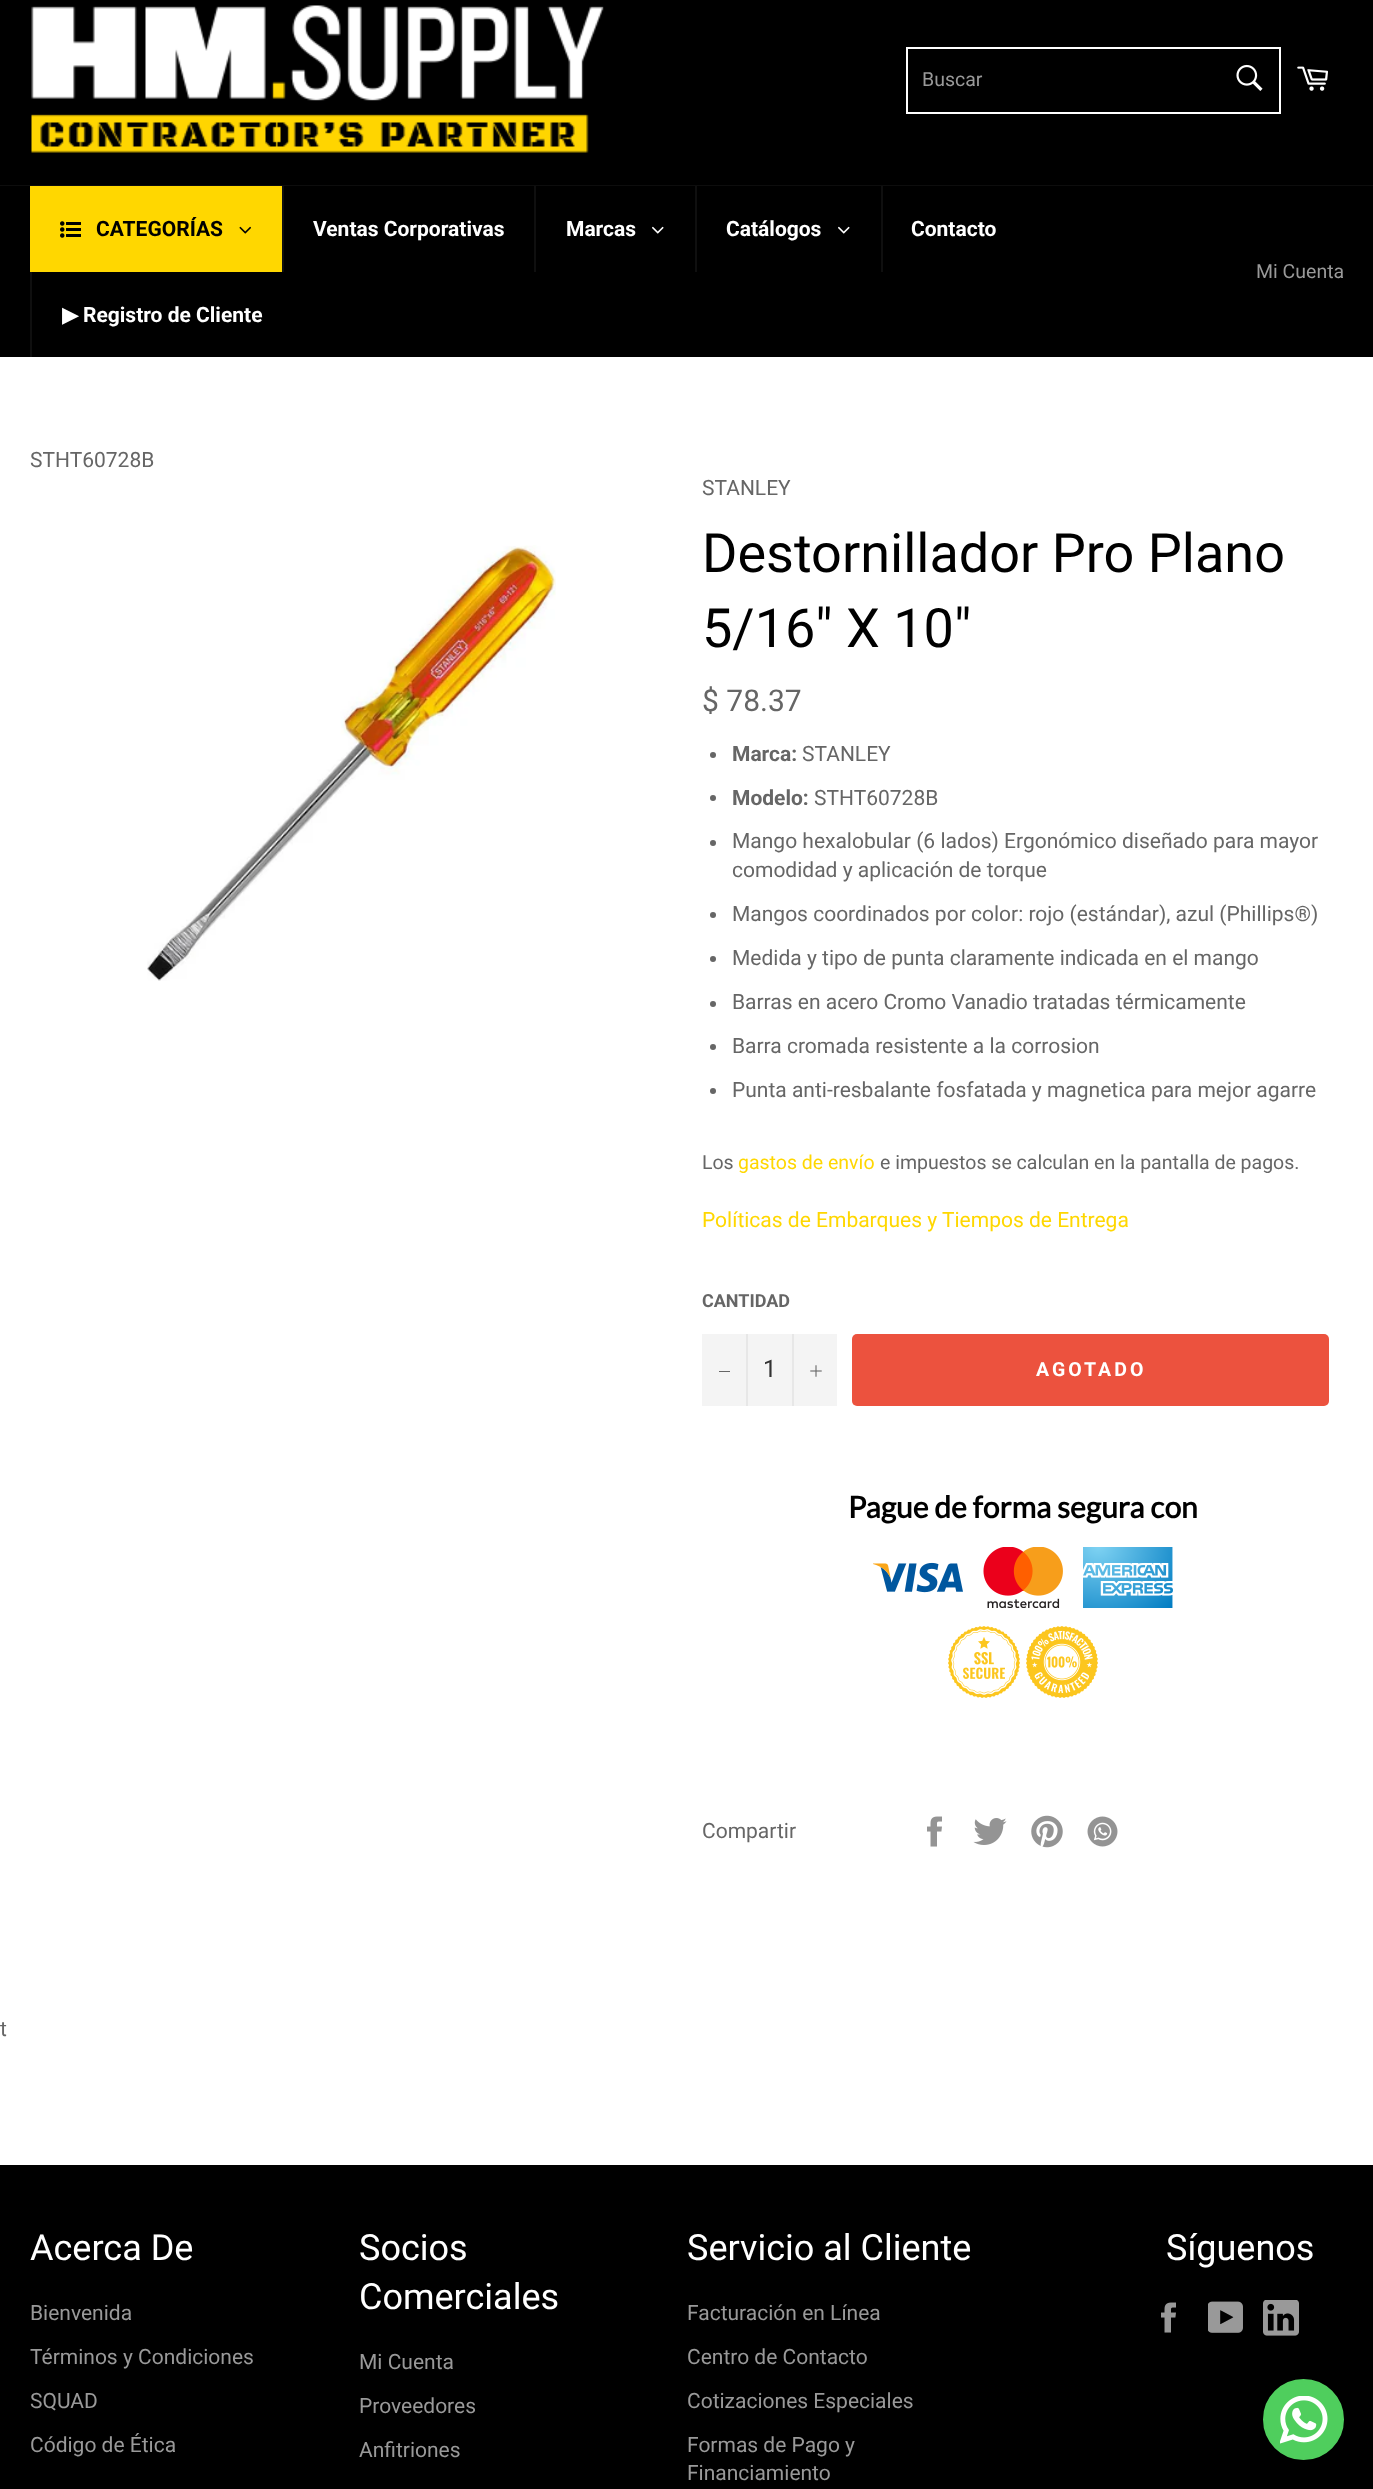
(async () => {
const canvas = document.querySelector("canvas")
canvas.width = 1373
canvas.height = 2489
const c = canvas.getContext("2d")
c.miterLimit = 4
c.fontKerning = "normal"
function T(s,x,y){c.fillText(s,x,y)}
function R(x,y,w,h){c.fillRect(x,y,w,h)}
function Q(x,y,w,h,r){c.beginPath();c.roundRect(x,y,w,h,r);c.fill()}
async function I(src,x,y,w,h){const img=new Image();img.src=src;await img.decode();c.drawImage(img,x,y,w,h)}
c.fillStyle="#fff"
R(0,0,1373,2489)
c.fillStyle="#000"
R(0,0,1373,185)
await I("1.png",31,5,573,148)
c.strokeStyle="#fff"
c.lineWidth=2
c.strokeRect(907,48,373,65)
c.font="19.5px Roboto"
c.fillStyle="#999"
T("Buscar",922,86)
await I("2.png",1236,64,27,27)
await I("3.png",1297,66,31,25)
c.fillStyle="#0d0d0d"
R(0,185,1373,1)
c.fillStyle="#000"
R(0,186,1373,171)
c.fillStyle="#ffd700"
R(30,186,252,86)
await I("4.png",60,221,21,17)
c.font="bold 21px Roboto"
c.fillStyle="#000"
T("CATEGORÍAS",96,236)
await I("5.png",239,226,12,8)
c.fillStyle="#0f0f0f"
R(282,186,2,86)
c.fillStyle="#fff"
T("Ventas Corporativas",313,236)
c.fillStyle="#0f0f0f"
R(534,186,2,86)
c.fillStyle="#fff"
T("Marcas",566,236)
await I("6.png",652,226,12,8)
c.fillStyle="#0f0f0f"
R(695,186,2,86)
c.fillStyle="#fff"
T("Catálogos",726,236)
await I("6.png",838,226,12,8)
c.fillStyle="#0f0f0f"
R(881,186,2,86)
c.fillStyle="#fff"
T("Contacto",911,236)
c.fillStyle="#0f0f0f"
R(30,272,2,85)
c.font="bold 21px DejaVu Sans"
c.fillStyle="#fff"
T("▶",62,322)
c.font="bold 21px Roboto"
T("Registro de Cliente",83,322)
c.font="19.5px Roboto"
c.fillStyle="#999"
T("Mi Cuenta",1256,278)
c.font="21px Roboto"
c.fillStyle="#666"
T("STHT60728B",30,467)
await I("7.png",147,545,409,436)
T("STANLEY",702,495)
c.font="54px Roboto"
c.fillStyle="#000"
T("Destornillador Pro Plano",702,572)
T("5/16\" X 10\"",702,647)
c.font="30px Roboto"
c.fillStyle="#666"
T("$ 78.37",702,711)
c.beginPath()
c.arc(713,755,3,0,7)
c.fill()
c.font="bold 21px Roboto"
T("Marca:",732,761)
c.font="21px Roboto"
T("STANLEY",802,761)
c.beginPath()
c.arc(713,798,3,0,7)
c.fill()
c.font="bold 21px Roboto"
T("Modelo:",732,805)
c.font="21px Roboto"
T("STHT60728B",814,805)
c.beginPath()
c.arc(713,843,3,0,7)
c.fill()
T("Mango hexalobular (6 lados) Ergonómico diseñado para mayor",732,848)
T("comodidad y aplicación de torque",732,877)
c.beginPath()
c.arc(713,915,3,0,7)
c.fill()
T("Mangos coordinados por color: rojo (estándar), azul (Phillips®)",732,921)
c.beginPath()
c.arc(713,959,3,0,7)
c.fill()
T("Medida y tipo de punta claramente indicada en el mango",732,965)
c.beginPath()
c.arc(713,1004,3,0,7)
c.fill()
T("Barras en acero Cromo Vanadio tratadas térmicamente",732,1009)
c.beginPath()
c.arc(713,1047,3,0,7)
c.fill()
T("Barra cromada resistente a la corrosion",732,1053)
c.beginPath()
c.arc(713,1091,3,0,7)
c.fill()
T("Punta anti-resbalante fosfatada y magnetica para mejor agarre",732,1097)
c.font="19.5px Roboto"
T("Los",702,1169)
c.fillStyle="#ffd700"
T("gastos de envío",738,1169)
c.fillStyle="#666"
T("e impuestos se calculan en la pantalla de pagos.",880,1169)
c.font="21px Roboto"
c.fillStyle="#ffd700"
T("Políticas de Embarques y Tiempos de Entrega",702,1227)
c.font="bold 18px Roboto"
c.fillStyle="#666"
T("CANTIDAD",702,1307)
c.fillStyle="#f4f4f4"
R(702,1334,135,72)
c.fillStyle="#e7e7e7"
R(746,1334,2,72)
c.fillStyle="#666"
R(719,1371,11,1)
c.font="24px Roboto"
c.fillStyle="#333"
T("1",763,1377)
c.fillStyle="#e7e7e7"
R(792,1334,2,72)
await I("8.png",810,1365,12,12)
c.fillStyle="#ec523e"
Q(852,1334,477,72,5)
c.letterSpacing="3px"
c.font="bold 19.5px Roboto"
c.fillStyle="#fff"
T("AGOTADO",1036,1376)
c.letterSpacing="0px"
c.font="bold 30px Lato"
c.fillStyle="#000"
T("Pague de forma segura con",848,1518)
await I("9.png",873,1562,90,31)
await I("10.png",983,1547,80,61)
await I("11.png",1083,1547,90,61)
await I("12.png",948,1626,72,72)
await I("13.png",1026,1626,72,72)
c.font="21px Roboto"
c.fillStyle="#666"
T("Compartir",702,1838)
await I("14.png",927,1816,15,31)
await I("15.png",973,1818,34,27)
await I("16.png",1031,1815,32,33)
await I("17.png",1087,1816,31,31)
T("t",0,2036)
c.fillStyle="#000"
R(0,2165,1373,324)
c.font="36px Roboto"
c.fillStyle="#fff"
T("Acerca De",30,2260)
c.font="21px Roboto"
c.fillStyle="#999"
T("Bienvenida",30,2320)
T("Términos y Condiciones",30,2364)
T("SQUAD",30,2408)
T("Código de Ética",30,2452)
c.font="36px Roboto"
c.fillStyle="#fff"
T("Socios",359,2260)
T("Comerciales",359,2309)
c.font="21px Roboto"
c.fillStyle="#999"
T("Mi Cuenta",359,2369)
T("Proveedores",359,2413)
T("Anfitriones",359,2457)
c.font="36px Roboto"
c.fillStyle="#fff"
T("Servicio al Cliente",687,2260)
c.font="21px Roboto"
c.fillStyle="#999"
T("Facturación en Línea",687,2320)
T("Centro de Contacto",687,2364)
T("Cotizaciones Especiales",687,2408)
T("Formas de Pago y",687,2452)
T("Financiamiento",687,2480)
c.font="36px Roboto"
c.fillStyle="#fff"
T("Síguenos",1166,2260)
await I("18.png",1161,2302,15,31)
await I("19.png",1208,2301,35,32)
await I("20.png",1263,2300,36,36)
c.fillStyle="#4fce5d"
c.beginPath()
c.arc(1303.5,2419.5,39.5,0,7)
c.fill()
c.strokeStyle="#4fce5d"
c.stroke()
await I("21.png",1280,2396,48,48)
})()
